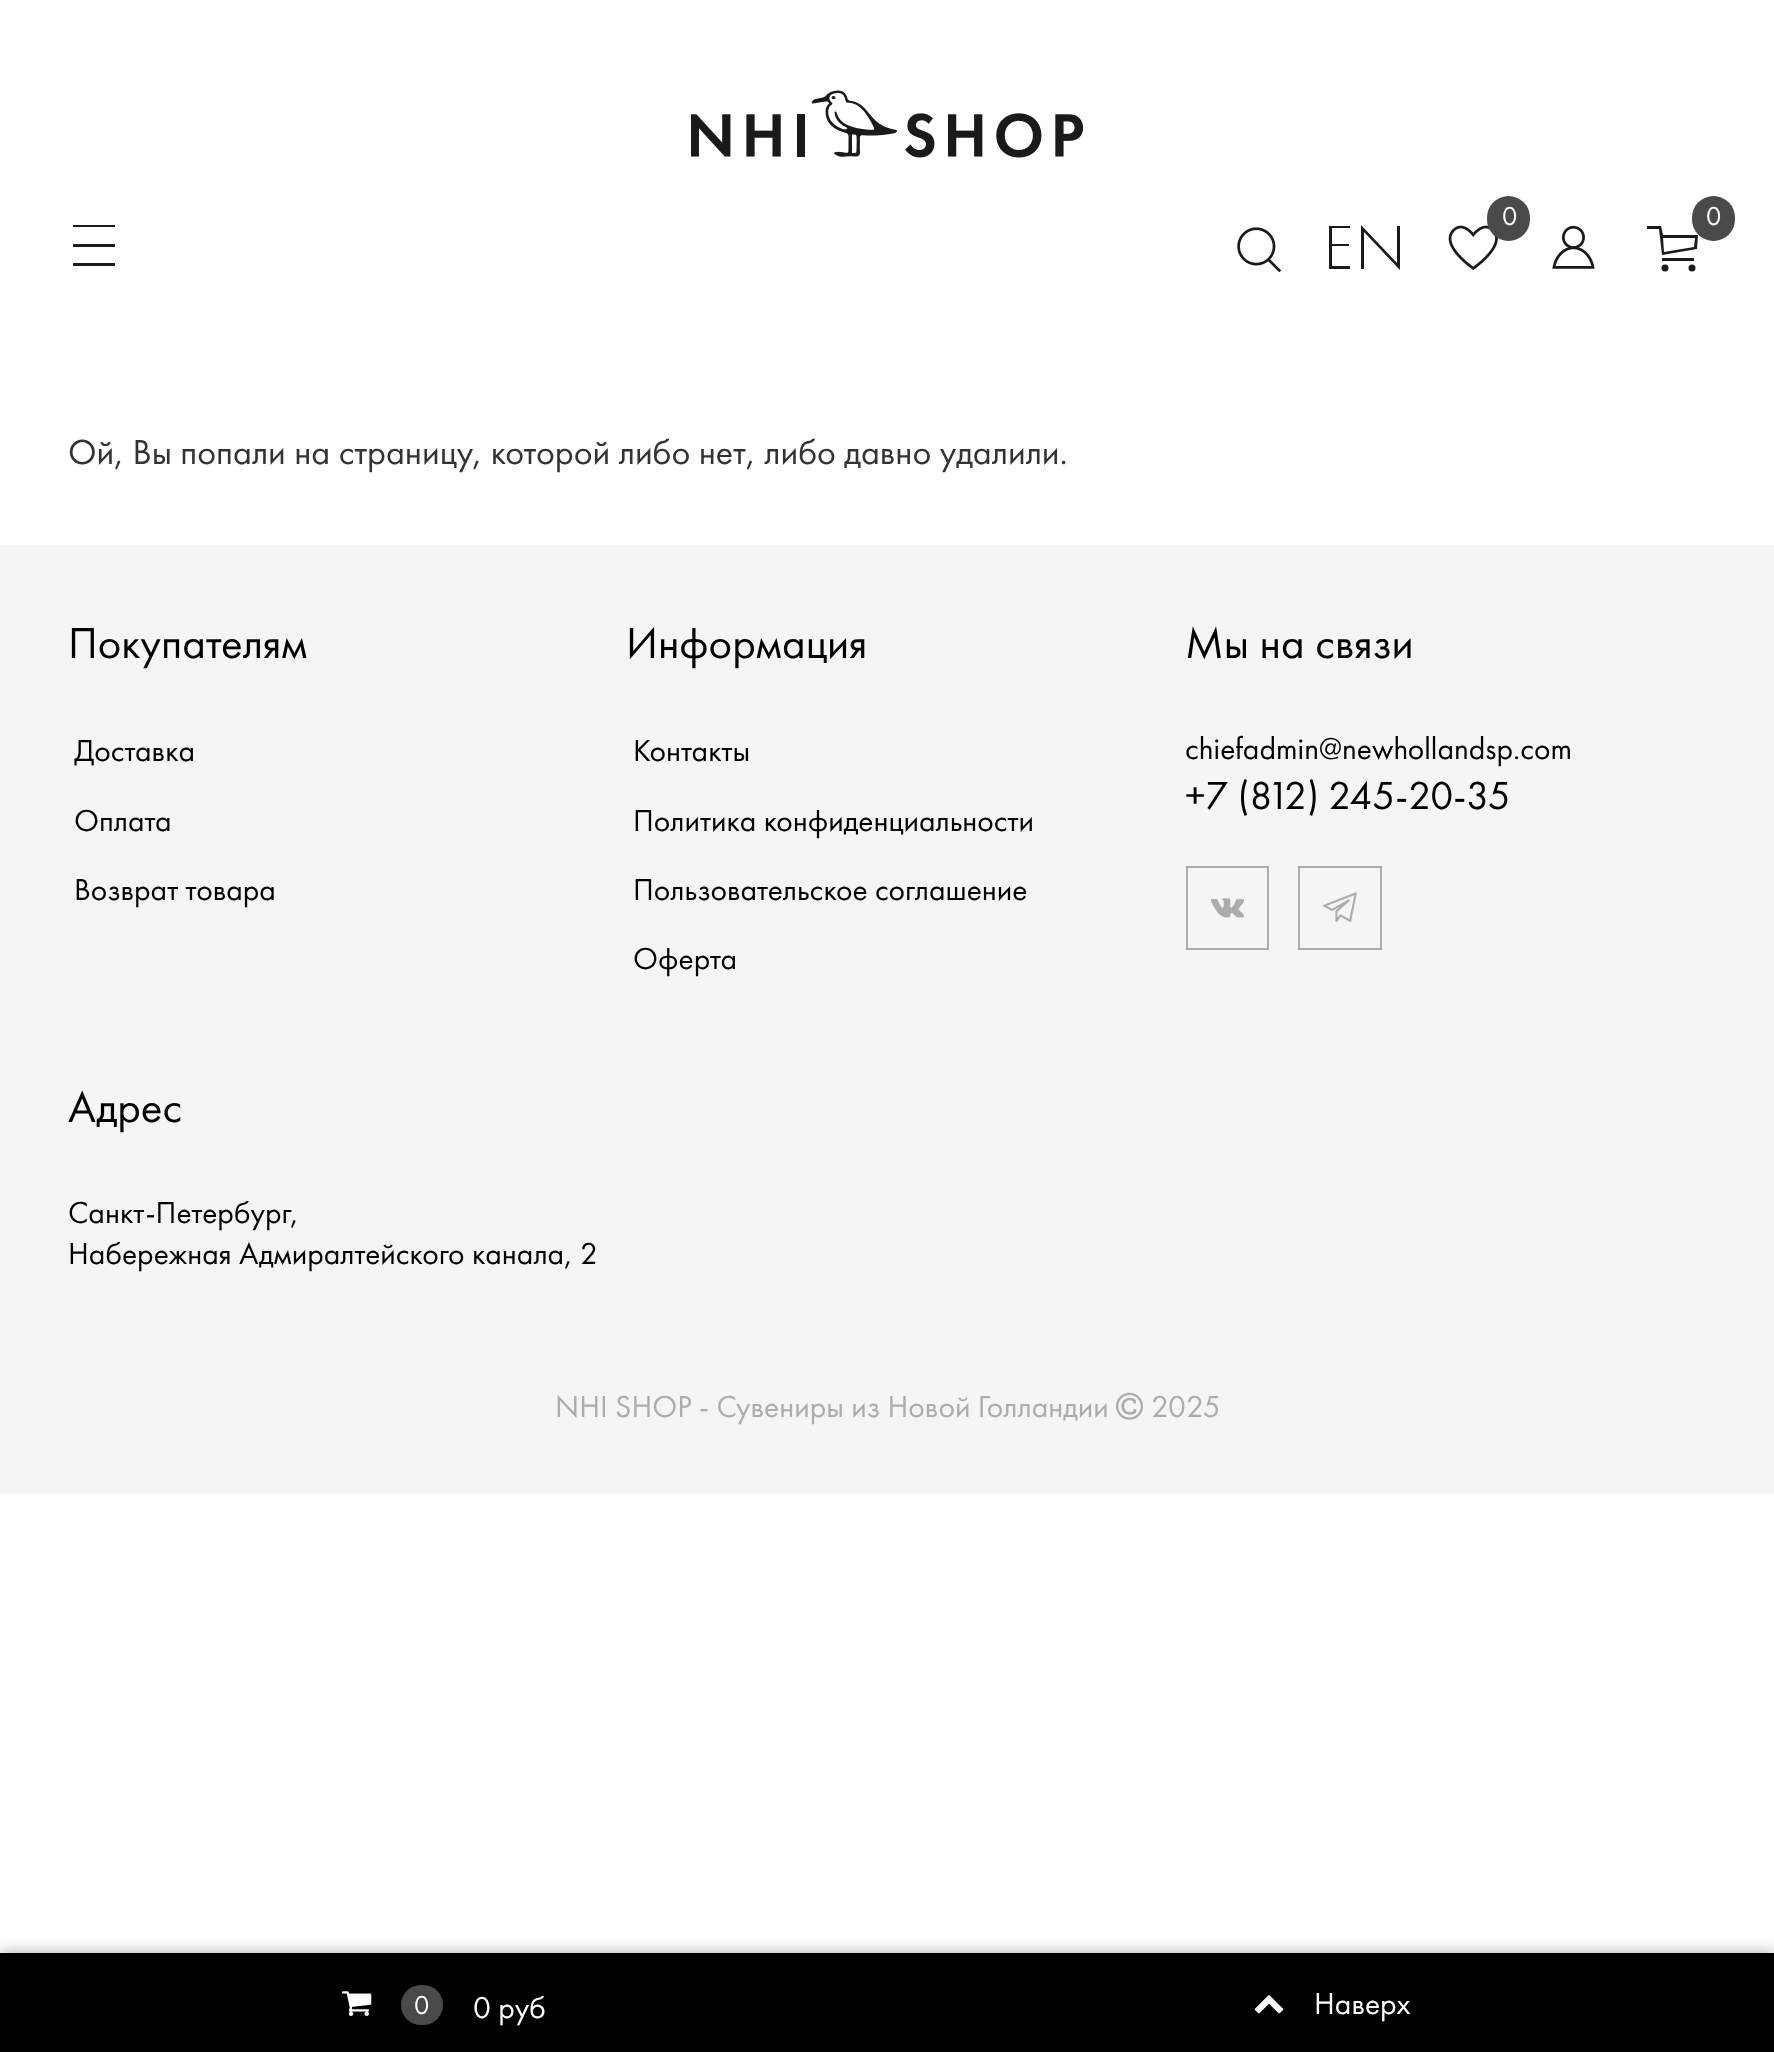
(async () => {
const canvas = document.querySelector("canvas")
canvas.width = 1774
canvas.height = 2052
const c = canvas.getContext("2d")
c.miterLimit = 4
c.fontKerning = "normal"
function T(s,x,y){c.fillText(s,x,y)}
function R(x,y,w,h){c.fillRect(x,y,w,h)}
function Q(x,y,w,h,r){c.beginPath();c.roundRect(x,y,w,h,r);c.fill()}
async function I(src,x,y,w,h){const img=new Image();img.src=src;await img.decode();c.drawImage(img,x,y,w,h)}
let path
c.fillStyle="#fff"
R(0,0,1774,2052)
await I("1.png",691,90,393,68)
await I("2.png",1448,225,50,45)
c.fillStyle="#4a4a4a"
Q(1487,196,43,45,21.5)
c.font="27px Futura PT"
c.fillStyle="#fff"
T("0",1502,225)
c.fillStyle="#1a1a1a"
path = new Path2D("M1662 255l-3-26h-12v-3h14l2 9h35l-1 14zm1-17l1 14l30-5l1-9z")
c.fill(path)
c.fillStyle="#4a4a4a"
Q(1692,196,43,45,21.5)
c.fillStyle="#fff"
T("0",1706,225)
c.fillStyle="#1a1a1a"
R(1662,258,32,3)
c.beginPath()
c.arc(1665,268,3.5,0,7)
c.fill()
c.beginPath()
c.arc(1692,268,3.5,0,7)
c.fill()
await I("3.png",1237,227,45,45)
path = new Path2D("M1350 228h-18v16h17v2h-17v20h18v3h-21v-43h21z")
c.fill(path)
path = new Path2D("M1361 269v-44l36 38v-37h3v44l-36-38v37z")
c.fill(path)
await I("4.png",1552,225,43,44)
R(73,225,42,2)
R(73,244,42,3)
R(73,263,42,3)
c.font="36px Futura PT"
c.fillStyle="#333"
T("Ой, Вы попали на страницу, которой либо нет, либо давно удалили.",68,464)
c.fillStyle="#f5f5f5"
R(0,545,1774,949)
c.font="45px Futura PT"
c.fillStyle="#000"
T("Покупателям",68,658)
c.font="31.5px Futura PT"
T("Доставка",74,761)
T("Оплата",74,831)
T("Возврат товара",74,900)
c.font="45px Futura PT"
T("Информация",626,658)
c.font="31.5px Futura PT"
T("Контакты",633,761)
T("Политика конфиденциальности",633,831)
T("Пользовательское соглашение",633,900)
T("Оферта",633,969)
c.font="45px Futura PT"
T("Мы на связи",1185,658)
c.font="31.5px Futura PT"
T("chiefadmin@newhollandsp.com",1185,759)
c.font="40.5px Futura PT"
T("+7 (812) 245-20-35",1185,809)
c.strokeStyle="#acacac"
c.lineWidth=2
c.strokeRect(1187,867,81,82)
await I("5.png",1211,898,33,20)
c.strokeRect(1299,867,82,82)
await I("6.png",1323,892,34,30)
c.font="45px Futura PT"
T("Адрес",68,1122)
c.font="31.5px Futura PT"
T("Санкт-Петербург,",68,1223)
T("Набережная Адмиралтейского канала, 2",68,1264)
c.fillStyle="#acacac"
T("NHI SHOP - Сувениры из Новой Голландии",555,1417)
await I("7.png",1116,1392,27,28)
T("2025",1151,1417)
c.fillStyle="#00000057"
c.filter="blur(8px)"
c.beginPath()
c.rect(0,1953,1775,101)
c.fill()
c.filter="none"
c.fillStyle="#000"
R(0,1953,1774,99)
await I("8.png",342,1991,30,25)
c.fillStyle="#4a4a4a"
Q(401,1985,42,40,20)
c.font="27px Futura PT"
c.fillStyle="#fff"
T("0",414,2014)
c.font="31.5px Futura PT"
T("0 руб",473,2018)
await I("9.png",1254,1995,30,19)
T("Наверх",1314,2014)
})()
